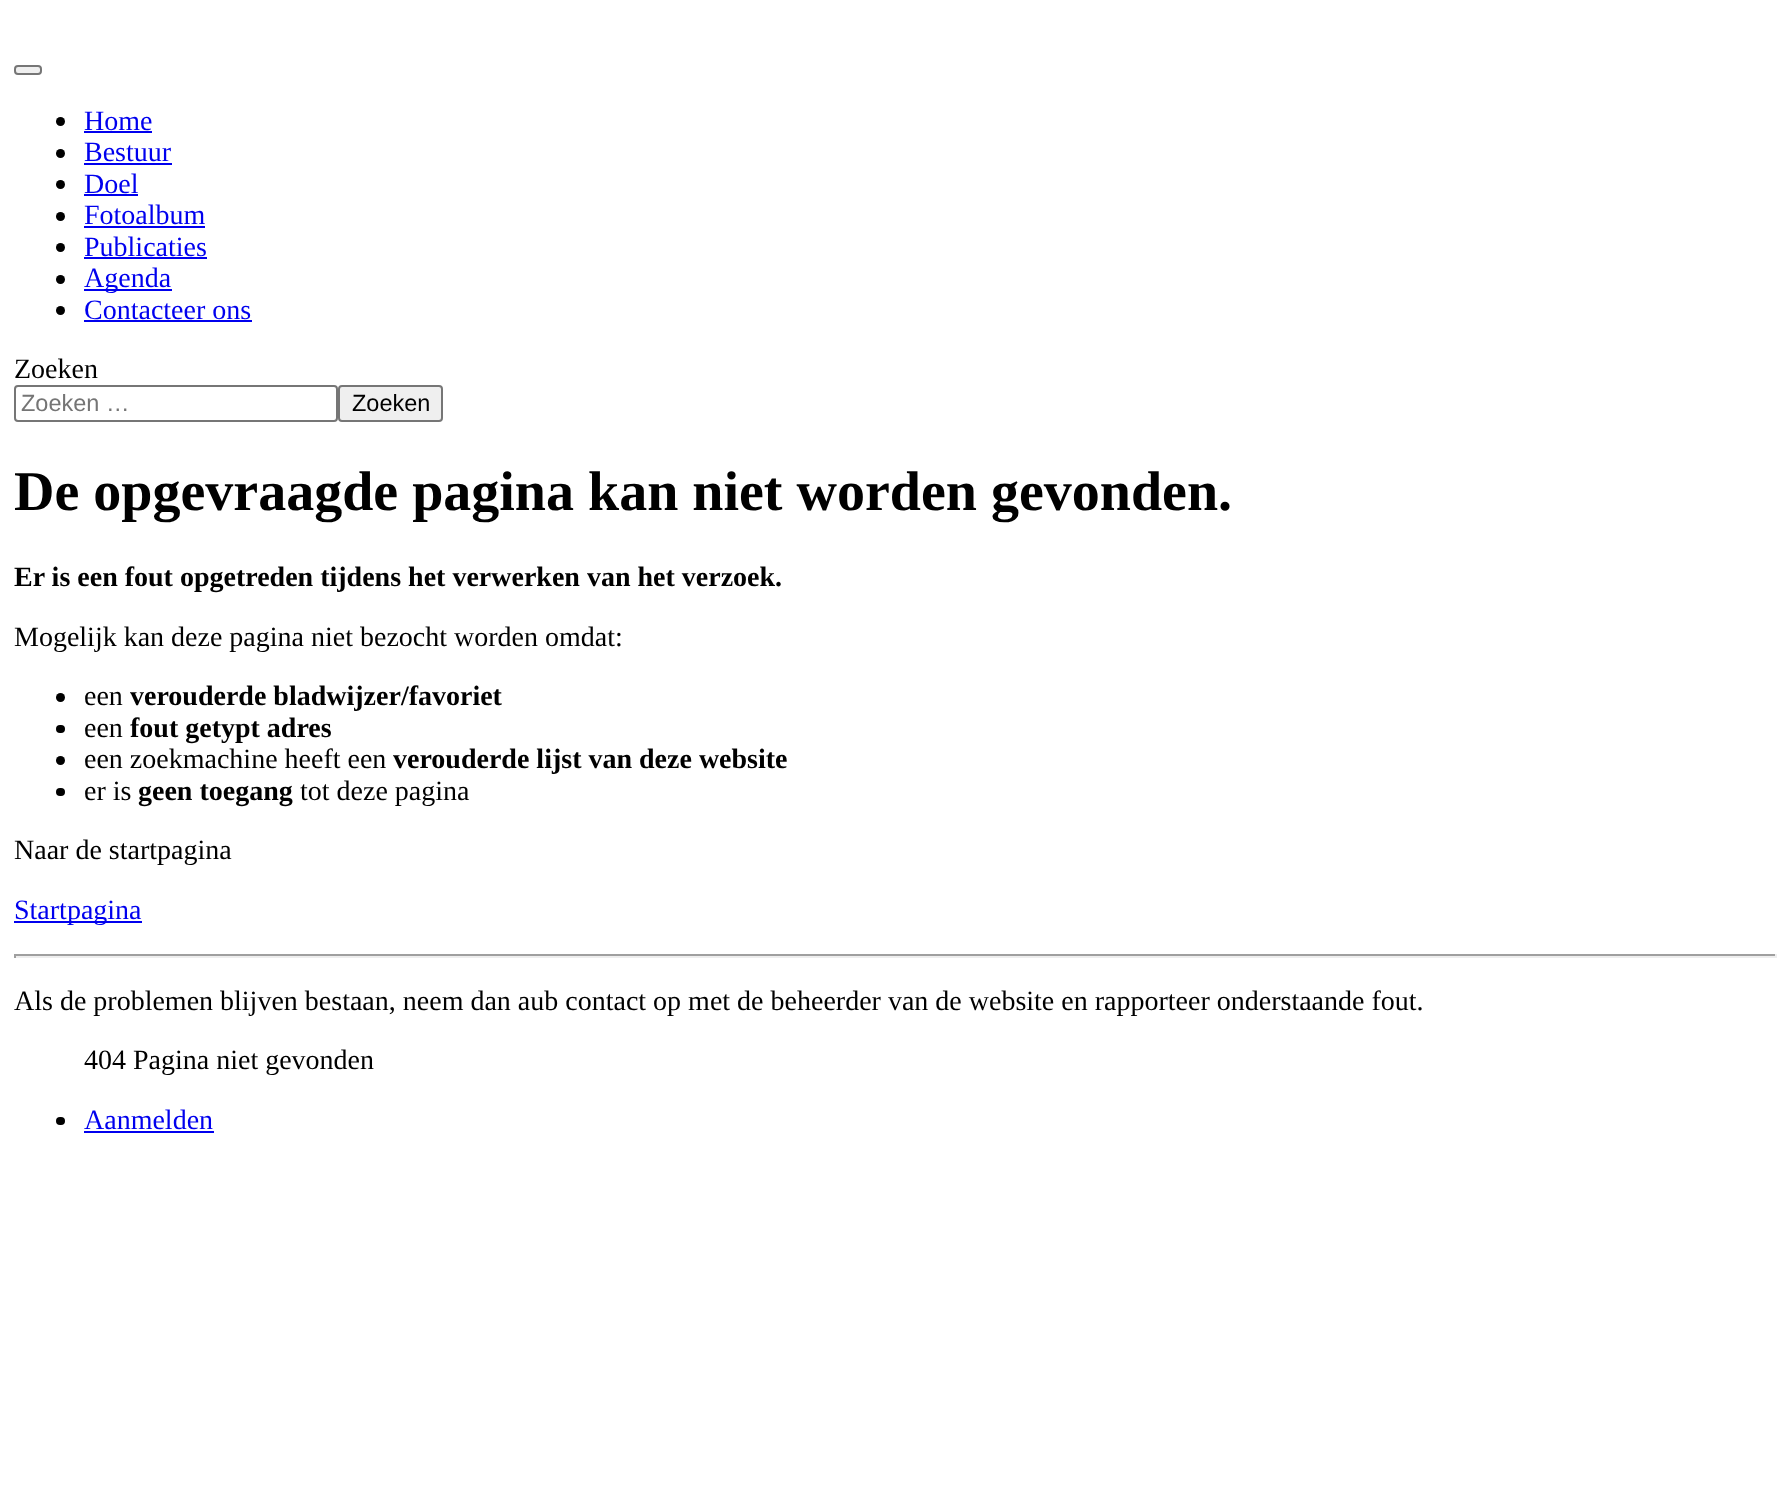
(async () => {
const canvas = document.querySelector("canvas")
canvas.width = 1789
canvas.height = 1499
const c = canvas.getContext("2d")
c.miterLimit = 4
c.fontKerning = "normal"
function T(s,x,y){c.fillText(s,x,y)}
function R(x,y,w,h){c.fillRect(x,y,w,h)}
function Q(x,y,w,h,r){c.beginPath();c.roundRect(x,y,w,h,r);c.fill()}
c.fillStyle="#fff"
R(0,0,1789,1499)
c.fillStyle="#efefef"
c.beginPath()
c.roundRect(15,66,26,8,3)
c.fill()
c.strokeStyle="#767676"
c.lineWidth=2
c.stroke()
c.fillStyle="#000"
c.beginPath()
c.arc(60.5,121.5,4.5,0,7)
c.fill()
c.font="28px Liberation Serif"
c.fillStyle="#00e"
T("Home",84,130)
R(84,131,68,2)
c.fillStyle="#000"
c.beginPath()
c.arc(60.5,153.5,4.5,0,7)
c.fill()
c.fillStyle="#00e"
T("Bestuur",84,161)
R(84,163,88,2)
c.fillStyle="#000"
c.beginPath()
c.arc(60.5,184.5,4.5,0,7)
c.fill()
c.fillStyle="#00e"
T("Doel",84,193)
R(84,194,54,2)
c.fillStyle="#000"
c.beginPath()
c.arc(60.5,216.5,4.5,0,7)
c.fill()
c.fillStyle="#00e"
T("Fotoalbum",84,224)
R(84,226,121,2)
c.fillStyle="#000"
c.beginPath()
c.arc(60.5,247.5,4.5,0,7)
c.fill()
c.fillStyle="#00e"
T("Publicaties",84,256)
R(84,257,123,2)
c.fillStyle="#000"
c.beginPath()
c.arc(60.5,279.5,4.5,0,7)
c.fill()
c.fillStyle="#00e"
R(84,289,88,2)
T("Agenda",84,287)
c.fillStyle="#000"
c.beginPath()
c.arc(60.5,310.5,4.5,0,7)
c.fill()
c.fillStyle="#00e"
T("Contacteer ons",84,319)
R(84,320,168,2)
c.fillStyle="#000"
T("Zoeken",14,378)
c.beginPath()
c.roundRect(15,386,322,35,3)
c.stroke()
c.font="23.5px Liberation Sans"
c.fillStyle="#757575"
T("Zoeken …",21,411)
c.fillStyle="#efefef"
c.beginPath()
c.roundRect(339,386,103,35,3)
c.fill()
c.stroke()
c.fillStyle="#000"
T("Zoeken",352,411)
c.font="bold 56px Liberation Serif"
T("De opgevraagde pagina kan niet worden gevonden.",14,510)
c.font="bold 28px Liberation Serif"
T("Er is een fout opgetreden tijdens het verwerken van het verzoek.",14,586)
c.font="28px Liberation Serif"
T("Mogelijk kan deze pagina niet bezocht worden omdat:",14,646)
c.beginPath()
c.arc(60.5,697.5,4.5,0,7)
c.fill()
T("een",84,705)
c.font="bold 28px Liberation Serif"
T("verouderde bladwijzer/favoriet",130,705)
Q(56,725,9,8,4)
c.font="28px Liberation Serif"
T("een",84,737)
c.font="bold 28px Liberation Serif"
T("fout getypt adres",130,737)
c.beginPath()
c.arc(60.5,760.5,4.5,0,7)
c.fill()
c.font="28px Liberation Serif"
T("een zoekmachine heeft een",84,768)
c.font="bold 28px Liberation Serif"
T("verouderde lijst van deze website",393,768)
Q(56,788,9,8,4)
c.font="28px Liberation Serif"
T("er is",84,800)
c.font="bold 28px Liberation Serif"
T("geen toegang",138,800)
c.font="28px Liberation Serif"
T("tot deze pagina",300,800)
T("Naar de startpagina",14,859)
c.fillStyle="#00e"
R(14,921,128,2)
T("Startpagina",14,919)
c.fillStyle="#9f9f9f"
R(14,954,1762,2)
c.fillStyle="#eee"
R(1775,954,2,4)
R(14,956,1762,2)
c.fillStyle="#9f9f9f"
R(14,954,2,4)
c.fillStyle="#000"
T("Als de problemen blijven bestaan, neem dan aub contact op met de beheerder van de website en rapporteer onderstaande fout.",14,1010)
T("404 Pagina niet gevonden",84,1069)
Q(56,1117,9,8,4)
c.fillStyle="#00e"
T("Aanmelden",84,1129)
R(84,1131,130,2)
})()
